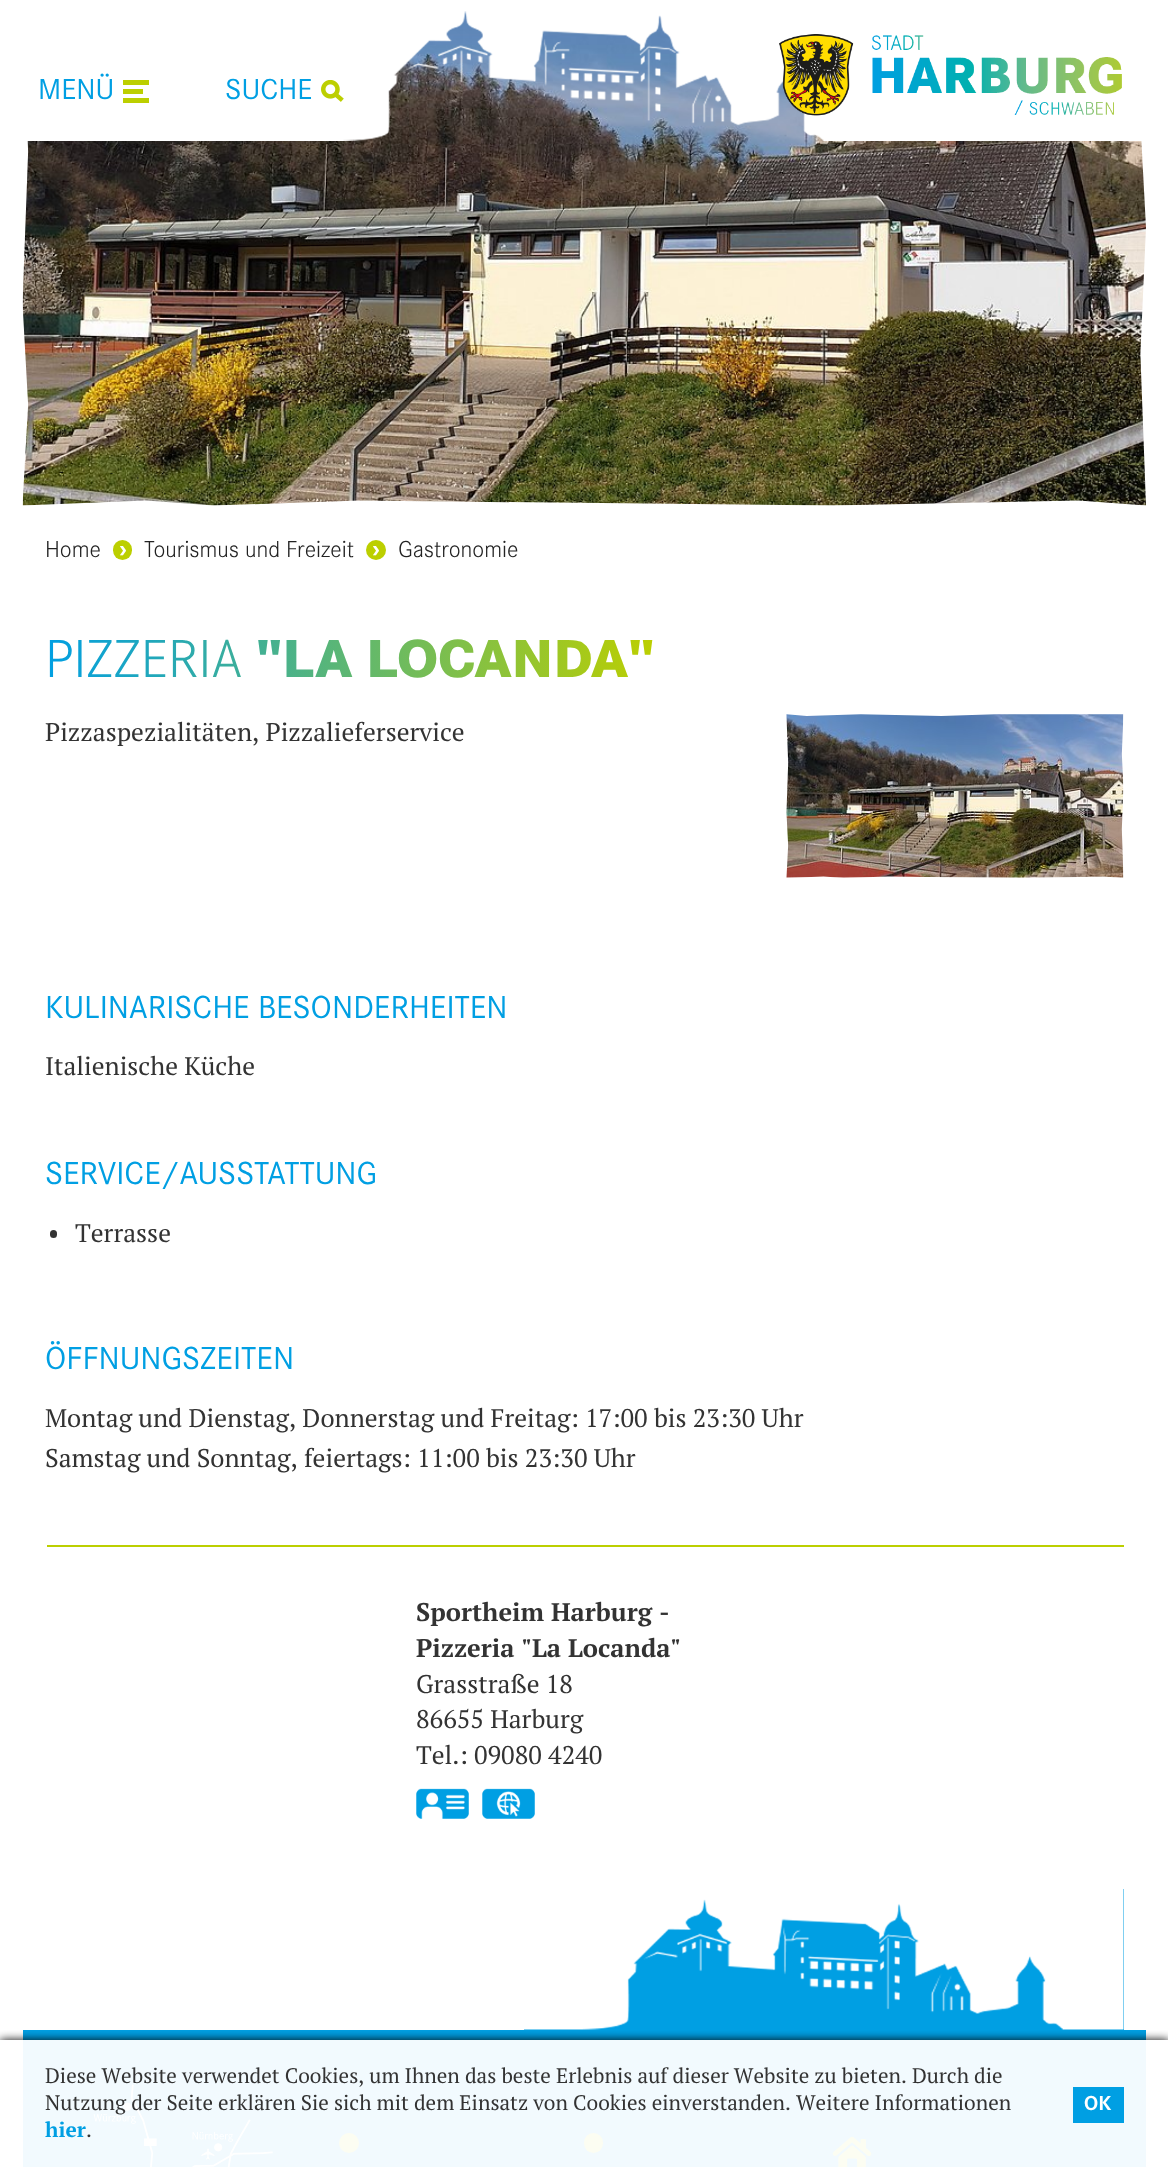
(async () => {
const canvas = document.querySelector("canvas")
canvas.width = 1168
canvas.height = 2167
const c = canvas.getContext("2d")
c.miterLimit = 4
c.fontKerning = "normal"
function T(s,x,y){c.fillText(s,x,y)}
function R(x,y,w,h){c.fillRect(x,y,w,h)}
function Q(x,y,w,h,r){c.beginPath();c.roundRect(x,y,w,h,r);c.fill()}
async function I(src,x,y,w,h){const img=new Image();img.src=src;await img.decode();c.drawImage(img,x,y,w,h)}
let gradient
c.fillStyle="#fff"
R(0,0,1168,2167)
await I("1.png",22,11,1124,495)
await I("2.png",22,0,1124,141)
c.font="30px 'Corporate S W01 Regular'"
c.fillStyle="#009fe3"
T("MENÜ",38,99)
c.fillStyle="#bccf00"
R(123,80,26,5)
R(123,89,20,5)
R(123,98,26,5)
c.fillStyle="#009fe3"
T("SUCHE",225,99)
await I("3.png",321,80,23,22)
await I("4.png",779,34,343,82)
c.font="300 24px 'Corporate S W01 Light'"
c.fillStyle="#222"
T("Home",45,557)
c.fillStyle="#bccf00"
Q(113,540,19,20,9.5)
c.font="bold 24px Liberation Sans"
c.fillStyle="#fff"
T("›",119,557)
c.font="300 24px 'Corporate S W01 Light'"
c.fillStyle="#222"
T("Tourismus und Freizeit",144,557)
c.fillStyle="#bccf00"
c.beginPath()
c.arc(376,550,10,0,7)
c.fill()
c.font="bold 24px Liberation Sans"
c.fillStyle="#fff"
T("›",372,557)
c.font="300 24px 'Corporate S W01 Light'"
c.fillStyle="#222"
T("Gastronomie",398,557)
c.font="300 55.5px 'Corporate S W01 Light'"
gradient = c.createLinearGradient(45,658,654,658)
gradient.addColorStop(0,"#009fe3")
gradient.addColorStop(1,"#bccf00")
c.fillStyle = gradient
T("PIZZERIA",45,677)
c.font="800 55.5px 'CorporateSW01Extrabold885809'"
T("\"LA LOCANDA\"",256,677)
c.font="25.5px PT Serif"
c.fillStyle="#333"
T("Pizzaspezialitäten, Pizzalieferservice",45,741)
await I("5.png",786,714,338,164)
c.font="33px 'Corporate S W01 Regular'"
c.fillStyle="#009fe3"
T("KULINARISCHE BESONDERHEITEN",45,1018)
c.font="25.5px PT Serif"
c.fillStyle="#333"
T("Italienische Küche",45,1075)
c.font="33px 'Corporate S W01 Regular'"
c.fillStyle="#009fe3"
T("SERVICE/AUSSTATTUNG",45,1184)
c.fillStyle="#333"
Q(50,1230,7,8,3.5)
c.font="25.5px PT Serif"
T("Terrasse",75,1242)
c.font="33px 'Corporate S W01 Regular'"
c.fillStyle="#009fe3"
T("ÖFFNUNGSZEITEN",45,1369)
c.font="25.5px PT Serif"
c.fillStyle="#333"
T("Montag und Dienstag, Donnerstag und Freitag: 17:00 bis 23:30 Uhr",45,1427)
T("Samstag und Sonntag, feiertags: 11:00 bis 23:30 Uhr",45,1467)
c.fillStyle="#bccf00"
R(47,1545,1077,2)
c.font="bold 25.5px PT Serif"
c.fillStyle="#333"
T("Sportheim Harburg -",416,1621)
T("Pizzeria \"La Locanda\"",416,1657)
c.font="25.5px PT Serif"
T("Grasstraße 18",416,1693)
T("86655 Harburg",416,1728)
T("Tel.: 09080 4240",416,1764)
await I("6.png",416,1788,53,31)
await I("7.png",482,1788,53,31)
c.fillStyle="#009fe3"
R(524,1889,600,141)
await I("8.png",524,1889,600,141)
R(23,2030,1123,10)
c.fillStyle="#f2fafe"
R(23,2040,1123,127)
await I("9.png",93,2084,180,83)
c.fillStyle="#fcfdf2"
c.beginPath()
c.arc(349,2143,10,0,7)
c.fill()
Q(584,2133,19,20,9.5)
await I("10.png",832,2136,40,31)
c.save()
c.beginPath()
c.rect(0,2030,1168,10)
c.clip()
c.fillStyle="#000"
c.filter="blur(5px)"
c.beginPath()
c.rect(0,2040,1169,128)
c.fill()
c.filter="none"
c.restore()
c.font="21px PT Serif"
c.fillStyle="#333"
T("Diese Website verwendet Cookies, um Ihnen das beste Erlebnis auf dieser Website zu bieten. Durch die",45,2083)
T("Nutzung der Seite erklären Sie sich mit dem Einsatz von Cookies einverstanden. Weitere Informationen",45,2110)
c.font="bold 21px PT Serif"
c.fillStyle="#009fe3"
T("hier",45,2137)
c.font="21px PT Serif"
c.fillStyle="#333"
T(".",86,2137)
c.fillStyle="#009fe3"
R(1073,2087,51,36)
c.font="bold 21px 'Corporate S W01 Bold'"
c.fillStyle="#fff"
T("OK",1084,2110)
})()
